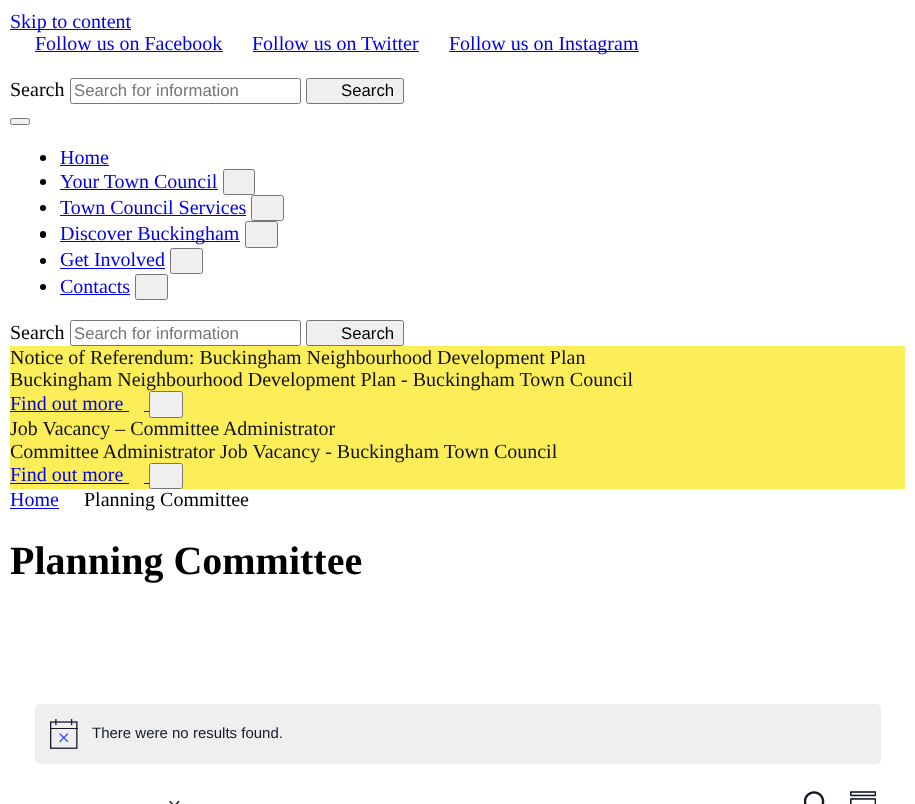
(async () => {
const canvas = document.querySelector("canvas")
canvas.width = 915
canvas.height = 804
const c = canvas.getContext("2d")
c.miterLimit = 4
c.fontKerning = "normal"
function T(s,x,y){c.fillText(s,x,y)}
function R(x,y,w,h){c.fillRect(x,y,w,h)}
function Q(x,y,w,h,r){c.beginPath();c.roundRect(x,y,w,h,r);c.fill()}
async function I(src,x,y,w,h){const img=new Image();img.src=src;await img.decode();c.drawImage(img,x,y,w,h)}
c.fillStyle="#fff"
R(0,0,915,804)
c.fillStyle="#00e"
R(10,29,121,1)
c.font="20px Liberation Serif"
T("Skip to content",10,28)
T("Follow us on Facebook",35,50)
R(35,51,188,1)
T("Follow us on Twitter",252,50)
R(253,51,166,1)
R(449,51,190,1)
T("Follow us on Instagram",449,50)
c.fillStyle="#000"
T("Search",10,96)
c.beginPath()
c.roundRect(70.5,78.5,230,25,2)
c.strokeStyle="#767676"
c.stroke()
c.font="16.75px Liberation Sans"
c.fillStyle="#757575"
T("Search for information",74,96)
c.fillStyle="#efefef"
c.beginPath()
c.roundRect(306.5,78.5,97,25,2)
c.fill()
c.stroke()
c.fillStyle="#000"
T("Search",341,96)
c.fillStyle="#efefef"
c.beginPath()
c.roundRect(10.5,118.5,19,6,2)
c.fill()
c.stroke()
c.fillStyle="#000"
c.beginPath()
c.arc(43,158,3,0,7)
c.fill()
c.font="20px Liberation Serif"
c.fillStyle="#00e"
T("Home",60,164)
R(60,165,49,1)
c.fillStyle="#000"
c.beginPath()
c.arc(43,182,3,0,7)
c.fill()
c.fillStyle="#00e"
T("Your Town Council",60,188)
R(60,189,158,1)
c.fillStyle="#efefef"
c.beginPath()
c.roundRect(223.5,169.5,31,25,2)
c.fill()
c.stroke()
c.fillStyle="#000"
c.beginPath()
c.arc(43,208,3,0,7)
c.fill()
c.fillStyle="#00e"
T("Town Council Services",60,214)
R(60,215,186,1)
c.fillStyle="#efefef"
c.beginPath()
c.roundRect(251.5,195.5,32,25,2)
c.fill()
c.stroke()
c.fillStyle="#000"
Q(40,231,6,7,3)
c.fillStyle="#00e"
R(60,241,180,1)
T("Discover Buckingham",60,240)
c.fillStyle="#efefef"
c.beginPath()
c.roundRect(245.5,221.5,32,26,2)
c.fill()
c.stroke()
c.fillStyle="#000"
c.beginPath()
c.arc(43,261,3,0,7)
c.fill()
c.fillStyle="#00e"
T("Get Involved",60,266)
R(60,268,105,1)
c.fillStyle="#efefef"
c.beginPath()
c.roundRect(170.5,248.5,32,25,2)
c.fill()
c.stroke()
c.fillStyle="#000"
c.beginPath()
c.arc(43,287,3,0,7)
c.fill()
c.fillStyle="#00e"
T("Contacts",60,293)
R(60,294,70,1)
c.fillStyle="#efefef"
c.beginPath()
c.roundRect(135.5,274.5,32,25,2)
c.fill()
c.stroke()
c.fillStyle="#000"
T("Search",10,339)
c.beginPath()
c.roundRect(70.5,320.5,230,25,2)
c.stroke()
c.font="16.75px Liberation Sans"
c.fillStyle="#757575"
T("Search for information",74,339)
c.fillStyle="#efefef"
c.beginPath()
c.roundRect(306.5,320.5,97,25,2)
c.fill()
c.stroke()
c.fillStyle="#000"
T("Search",341,339)
c.fillStyle="#fbee59"
R(10,346,895,143)
c.font="20px Liberation Serif"
c.fillStyle="#111"
T("Notice of Referendum: Buckingham Neighbourhood Development Plan",10,364)
T("Buckingham Neighbourhood Development Plan - Buckingham Town Council",10,386)
c.fillStyle="#00e"
T("Find out more",10,410)
R(10,411,119,1)
R(144,411,5,1)
c.fillStyle="#efefef"
c.beginPath()
c.roundRect(149.5,391.5,33,26,2)
c.fill()
c.stroke()
c.fillStyle="#111"
T("Job Vacancy – Committee Administrator",10,435)
T("Committee Administrator Job Vacancy - Buckingham Town Council",10,458)
c.fillStyle="#00e"
T("Find out more",10,481)
R(10,483,119,1)
R(144,483,5,1)
c.fillStyle="#efefef"
c.beginPath()
c.roundRect(149.5,463.5,33,25,2)
c.fill()
c.stroke()
c.fillStyle="#00e"
T("Home",10,506)
R(10,508,49,1)
c.fillStyle="#000"
T("Planning Committee",84,506)
c.font="bold 40px Liberation Serif"
T("Planning Committee",10,574)
c.fillStyle="#efeff0"
Q(35,704,846,60,5)
await I("1.png",50,719,28,30)
c.font="15px Liberation Sans"
c.fillStyle="#141827"
T("There were no results found.",92,738)
await I("2.png",169,800,11,4)
await I("3.png",804,791,21,13)
await I("4.png",850,791,26,13)
})()
